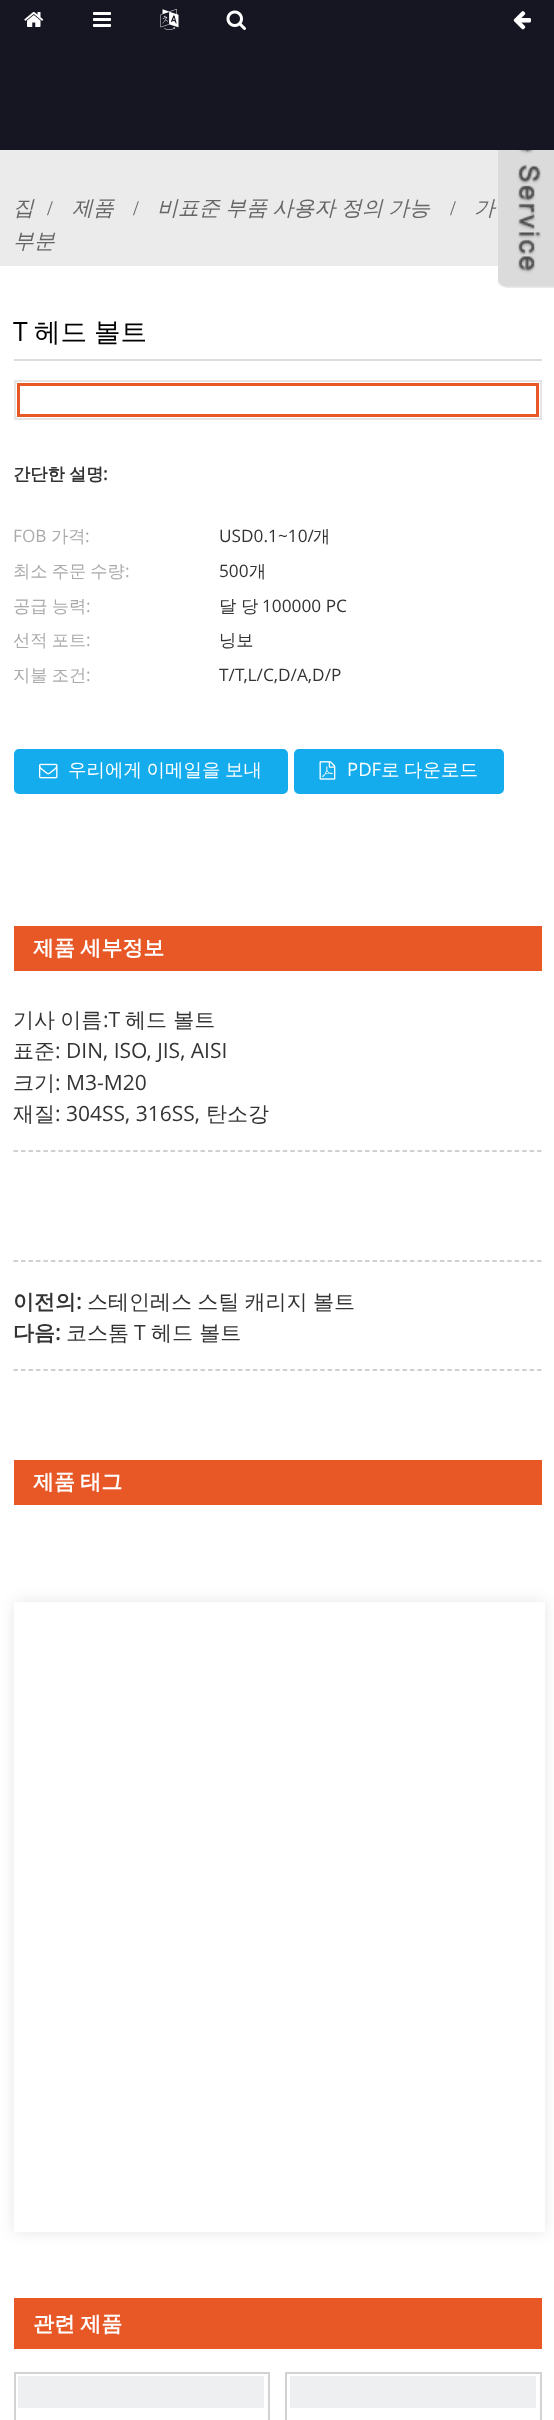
(async () => {
const canvas = document.querySelector("canvas")
canvas.width = 554
canvas.height = 2420
const c = canvas.getContext("2d")
c.miterLimit = 4
c.fontKerning = "normal"
function T(s,x,y){c.fillText(s,x,y)}
function R(x,y,w,h){c.fillRect(x,y,w,h)}
async function I(src,x,y,w,h){const img=new Image();img.src=src;await img.decode();c.drawImage(img,x,y,w,h)}
let path
c.fillStyle="#fff"
R(0,0,554,2420)
c.fillStyle="#161622"
R(0,0,554,150)
await I("1.png",24,12,20,15)
await I("2.png",93,12,18,15)
await I("3.png",160,9,19,21)
await I("4.png",226,10,20,20)
await I("5.png",513,11,18,19)
c.fillStyle="#ebebeb"
R(0,150,498,116)
c.font="italic 500 21px WenQuanYi Zen Hei"
c.fillStyle="#666"
T("집",13,215)
c.font="21px Liberation Serif"
T("/",47,215)
c.font="italic 500 21px WenQuanYi Zen Hei"
T("제품",72,215)
c.font="21px Liberation Serif"
T("/",133,215)
c.wordSpacing="-1px"
c.font="italic 500 21px WenQuanYi Zen Hei"
T("비표준 부품 사용자 정의 가능",157,215)
c.wordSpacing="0px"
c.font="21px Liberation Serif"
T("/",450,215)
c.font="italic 500 21px WenQuanYi Zen Hei"
T("가",474,215)
T("부분",13,248)
c.fillStyle="#ddd"
R(14,359,528,2)
c.font="26.5px Open Sans"
c.fillStyle="#000"
T("T",13,341)
c.wordSpacing="-1px"
c.font="500 26.5px WenQuanYi Zen Hei"
T("헤드 볼트",34,341)
c.strokeStyle="#e5e5e5"
c.lineWidth=2
c.strokeRect(15,381,526,38)
c.strokeStyle="#e75826"
c.lineWidth=3
c.strokeRect(18.5,384.5,519,31)
c.font="bold 17.25px WenQuanYi Zen Hei"
c.fillStyle="#333"
T("간단한 설명",13,480)
c.wordSpacing="0px"
c.font="bold 17.25px Open Sans"
T(":",103,480)
c.font="17.25px Open Sans"
c.fillStyle="#aaa"
T("FOB",13,542)
c.font="500 17.25px WenQuanYi Zen Hei"
T("가격",51,542)
c.font="17.25px Open Sans"
T(":",85,542)
c.fillStyle="#333"
T("USD0.1~10/",219,542)
c.font="500 17.25px WenQuanYi Zen Hei"
T("개",313,542)
c.wordSpacing="-1px"
c.fillStyle="#aaa"
T("최소 주문 수량",13,577)
c.wordSpacing="0px"
c.font="17.25px Open Sans"
T(":",125,577)
c.fillStyle="#333"
T("500",219,577)
c.font="500 17.25px WenQuanYi Zen Hei"
T("개",249,577)
c.wordSpacing="-1px"
c.fillStyle="#aaa"
T("공급 능력",13,612)
c.wordSpacing="0px"
c.font="17.25px Open Sans"
T(":",86,612)
c.font="500 17.25px WenQuanYi Zen Hei"
c.fillStyle="#333"
T("달",219,612)
T("당",241,612)
c.font="17.25px Open Sans"
T("100000 PC",262,612)
c.wordSpacing="-1px"
c.font="500 17.25px WenQuanYi Zen Hei"
c.fillStyle="#aaa"
T("선적 포트",13,646)
c.wordSpacing="0px"
c.font="17.25px Open Sans"
T(":",86,646)
c.font="500 17.25px WenQuanYi Zen Hei"
c.fillStyle="#333"
T("닝보",219,646)
c.wordSpacing="-1px"
c.fillStyle="#aaa"
T("지불 조건",13,681)
c.wordSpacing="0px"
c.font="17.25px Open Sans"
T(":",86,681)
c.fillStyle="#333"
T("T/T,L/C,D/A,D/P",219,681)
c.fillStyle="#14aced"
c.beginPath()
c.roundRect(15.5,750.5,271,42,3.5)
c.fill()
c.strokeStyle="#14aced"
c.stroke()
await I("6.png",39,763,19,16)
c.wordSpacing="-1px"
c.font="500 18.5px WenQuanYi Zen Hei"
c.fillStyle="#fff"
T("우리에게 이메일을 보내",68,776)
c.fillStyle="#14aced"
c.beginPath()
c.roundRect(295.5,750.5,207,42,3.5)
c.fill()
c.stroke()
await I("7.png",319,761,17,19)
c.wordSpacing="0px"
c.font="18.5px Open Sans"
c.fillStyle="#fff"
T("PDF",347,776)
c.wordSpacing="-1px"
c.font="500 18.5px WenQuanYi Zen Hei"
T("로 다운로드",381,776)
c.fillStyle="#e75826"
R(14,926,528,45)
c.font="bold 21px WenQuanYi Zen Hei"
c.fillStyle="#fff"
T("제품 세부정보",33,955)
c.font="500 21px WenQuanYi Zen Hei"
c.fillStyle="#333"
T("기사 이름",13,1027)
c.wordSpacing="0px"
c.font="21px Open Sans"
T(":T",103,1027)
c.font="500 21px WenQuanYi Zen Hei"
T("헤드 볼트",125,1027)
T("표준",13,1058)
c.font="21px Open Sans"
T(": DIN, ISO, JIS, AISI",55,1058)
c.font="500 21px WenQuanYi Zen Hei"
T("크기",13,1090)
c.font="21px Open Sans"
T(": M3-M20",55,1090)
c.font="500 21px WenQuanYi Zen Hei"
T("재질",13,1121)
c.font="21px Open Sans"
T(": 304SS, 316SS,",55,1121)
c.font="500 21px WenQuanYi Zen Hei"
T("탄소강",206,1121)
path = new Path2D("M13.5 1151h528")
c.strokeStyle="#c1c1c1"
c.lineWidth=1.5
c.setLineDash([4.5,2.98])
c.stroke(path)
path = new Path2D("M13.5 1261h528")
c.stroke(path)
c.font="bold 21px WenQuanYi Zen Hei"
T("이전의",13,1309)
c.font="bold 21px Open Sans"
T(":",76,1309)
c.wordSpacing="-1px"
c.font="500 21px WenQuanYi Zen Hei"
T("스테인레스 스틸 캐리지 볼트",87,1309)
c.wordSpacing="0px"
c.font="bold 21px WenQuanYi Zen Hei"
T("다음",13,1340)
c.font="bold 21px Open Sans"
T(":",55,1340)
c.font="500 21px WenQuanYi Zen Hei"
T("코스톰",66,1340)
c.font="21px Open Sans"
T("T",134,1340)
c.font="500 21px WenQuanYi Zen Hei"
T("헤드 볼트",151,1340)
path = new Path2D("M13.5 1370h528")
c.stroke(path)
c.fillStyle="#e75826"
R(14,1460,528,45)
c.wordSpacing="-1px"
c.font="bold 21px WenQuanYi Zen Hei"
c.fillStyle="#fff"
T("제품 태그",33,1489)
c.save()
path = new Path2D("M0 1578h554v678h-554zm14 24h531v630h-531z")
c.clip(path,"evenodd")
c.fillStyle="#0000001a"
c.filter="blur(7.5px)"
c.beginPath()
c.rect(14,1602,531,630)
c.fill()
c.filter="none"
c.restore()
c.fillStyle="#e75826"
R(14,2298,528,51)
c.fillStyle="#fff"
T("관련 제품",33,2331)
c.strokeStyle="#d2d2d2"
c.lineWidth=2
c.setLineDash([])
c.strokeRect(15,2373,254,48)
c.fillStyle="#eeeff1"
R(18,2376,246,32)
c.strokeRect(286,2373,255,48)
R(290,2376,246,32)
await I("8.png",498,150,56,138)
})()
